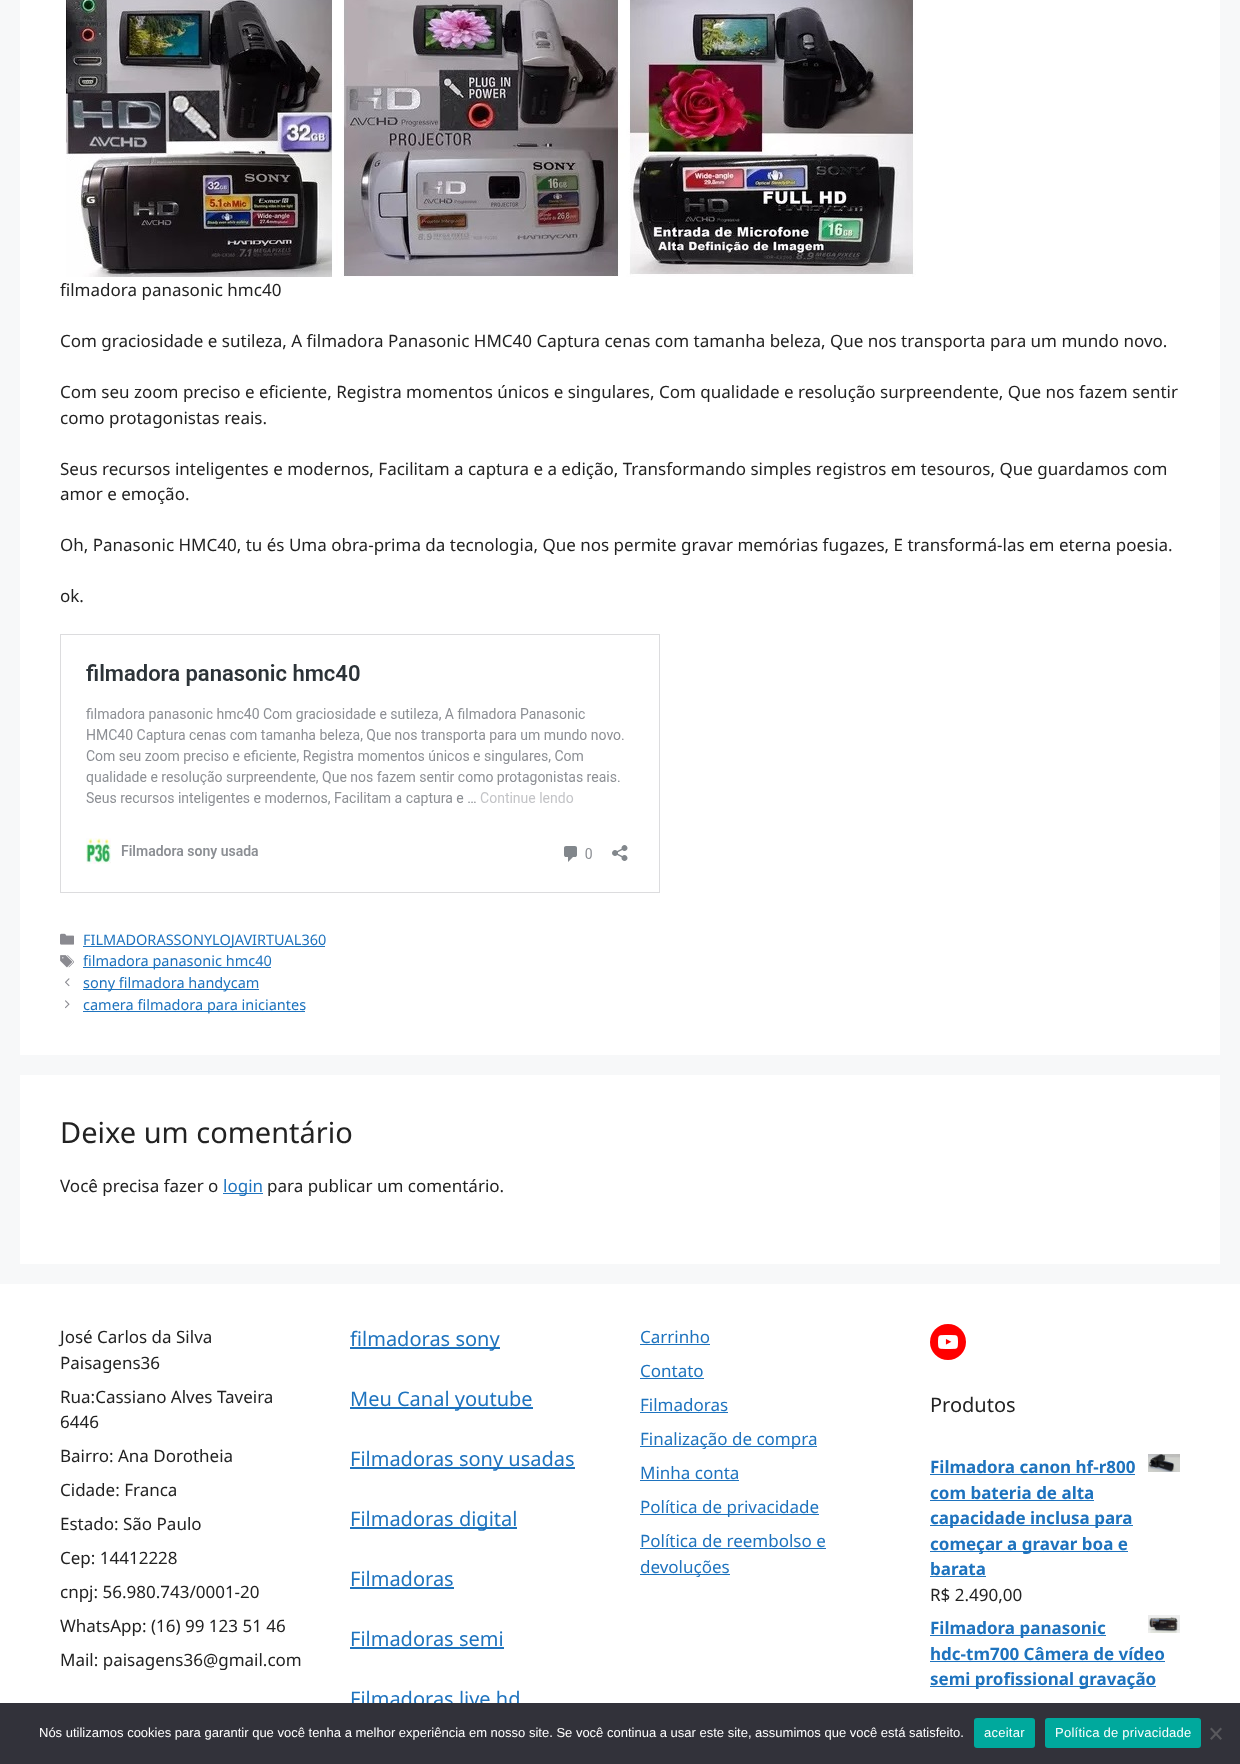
(async () => {
const canvas = document.querySelector("canvas")
canvas.width = 1240
canvas.height = 1764
const c = canvas.getContext("2d")
c.miterLimit = 4
c.fontKerning = "normal"
function T(s,x,y){c.fillText(s,x,y)}
function R(x,y,w,h){c.fillRect(x,y,w,h)}
function Q(x,y,w,h,r){c.beginPath();c.roundRect(x,y,w,h,r);c.fill()}
async function I(src,x,y,w,h){const img=new Image();img.src=src;await img.decode();c.drawImage(img,x,y,w,h)}
let path
c.fillStyle="#f7f8f9"
R(0,0,1240,1764)
c.fillStyle="#fff"
R(20,0,1200,1055)
await I("1.png",65,0,851,277)
c.font="17px Noto Sans"
c.fillStyle="#222"
T("filmadora panasonic hmc40",60,296)
T("Com graciosidade e sutileza, A filmadora Panasonic HMC40 Captura cenas com tamanha beleza, Que nos transporta para um mundo novo.",60,347)
T("Com seu zoom preciso e eficiente, Registra momentos únicos e singulares, Com qualidade e resolução surpreendente, Que nos fazem sentir",60,398)
T("como protagonistas reais.",60,424)
T("Seus recursos inteligentes e modernos, Facilitam a captura e a edição, Transformando simples registros em tesouros, Que guardamos com",60,475)
T("amor e emoção.",60,500)
T("Oh, Panasonic HMC40, tu és Uma obra-prima da tecnologia, Que nos permite gravar memórias fugazes, E transformá-las em eterna poesia.",60,551)
T("ok.",60,602)
await I("2.png",60,634,600,259)
await I("3.png",60,933,14,12)
c.fillStyle="#1e73be"
R(83,946,242,1)
c.font="14.5px Noto Sans"
T("FILMADORASSONYLOJAVIRTUAL360",83,945)
await I("4.png",60,955,14,13)
R(83,967,188,1)
T("filmadora panasonic hmc40",83,966)
await I("5.png",65,978,5,9)
R(83,989,176,1)
T("sony filmadora handycam",83,988)
await I("6.png",65,1000,5,9)
R(83,1011,222,1)
T("camera filmadora para iniciantes",83,1010)
c.fillStyle="#fff"
R(20,1075,1200,189)
c.font="29px Noto Sans"
c.fillStyle="#222"
T("Deixe um comentário",60,1143)
c.font="17px Noto Sans"
T("Você precisa fazer o",60,1192)
c.fillStyle="#1e73be"
R(223,1193,40,1)
T("login",223,1192)
c.fillStyle="#222"
T("para publicar um comentário.",267,1192)
c.fillStyle="#fff"
R(0,1284,1240,419)
c.fillStyle="#222"
T("José Carlos da Silva",60,1343)
T("Paisagens36",60,1369)
T("Rua:Cassiano Alves Taveira",60,1403)
T("6446",60,1428)
T("Bairro: Ana Dorotheia",60,1462)
T("Cidade: Franca",60,1496)
T("Estado: São Paulo",60,1530)
T("Cep: 14412228",60,1564)
T("cnpj: 56.980.743/0001-20",60,1598)
T("WhatsApp: (16) 99 123 51 46",60,1632)
T("Mail: paisagens36@gmail.com",60,1666)
c.fillStyle="#1e73be"
R(350,1347,150,2)
c.font="20px Noto Sans"
T("filmadoras sony",350,1346)
R(350,1407,183,2)
T("Meu Canal youtube",350,1406)
R(350,1467,225,2)
T("Filmadoras sony usadas",350,1466)
R(350,1527,167,2)
T("Filmadoras digital",350,1526)
T("Filmadoras",350,1586)
R(350,1587,104,2)
T("Filmadoras semi",350,1646)
R(350,1647,154,2)
T("Filmadoras live hd",350,1706)
c.font="17px Noto Sans"
T("Carrinho",640,1343)
R(640,1344,70,1)
T("Contato",640,1377)
R(640,1378,64,1)
T("Filmadoras",640,1411)
R(640,1412,88,1)
R(640,1446,177,1)
T("Finalização de compra",640,1445)
T("Minha conta",640,1479)
R(640,1480,99,1)
R(640,1514,179,1)
T("Política de privacidade",640,1513)
T("Política de reembolso e",640,1547)
R(640,1548,186,1)
R(640,1574,90,1)
T("devoluções",640,1573)
c.fillStyle="#f00"
c.beginPath()
c.arc(948,1342,18,0,7)
c.fill()
await I("7.png",938,1335,20,14)
c.font="20px Noto Sans"
c.fillStyle="#222"
T("Produtos",930,1412)
c.font="bold 17px Noto Sans"
c.fillStyle="#1e73be"
T("Filmadora canon hf-r800",930,1473)
R(930,1474,205,1)
await I("8.png",1148,1454,32,18)
T("com bateria de alta",930,1499)
R(930,1500,164,1)
R(930,1525,203,1)
T("capacidade inclusa para",930,1524)
R(930,1551,198,1)
T("começar a gravar boa e",930,1550)
T("barata",930,1575)
R(930,1576,56,1)
c.font="17px Noto Sans"
c.fillStyle="#222"
T("R$ 2.490,00",930,1601)
c.fillStyle="#1e73be"
R(930,1635,176,1)
c.font="bold 17px Noto Sans"
T("Filmadora panasonic",930,1634)
await I("9.png",1148,1615,32,18)
T("hdc-tm700 Câmera de vídeo",930,1660)
R(930,1661,235,1)
R(930,1686,226,1)
T("semi profissional gravação",930,1685)
c.fillStyle="#32323a"
R(0,1703,1240,61)
c.font="13px Liberation Sans"
c.fillStyle="#fff"
T("Nós utilizamos cookies para garantir que você tenha a melhor experiência em nosso site. Se você continua a usar este site, assumimos que você está satisfeito.",39,1737)
c.fillStyle="#00a99d"
Q(974,1718,61,30,3)
c.letterSpacing="0.25px"
c.fillStyle="#fff"
T("aceitar",984,1737)
c.fillStyle="#00a99d"
Q(1045,1718,156,30,3)
c.fillStyle="#fff"
T("Política de privacidade",1055,1737)
c.fillStyle="#59595d"
path = new Path2D("M1220.5 1727.5l1.5 1.5l-10.5 11l-1.5-1.5z")
c.fill(path)
path = new Path2D("M1210 1729l1.5-1.5l10.5 11l-1.5 1.5z")
c.fill(path)
})()
